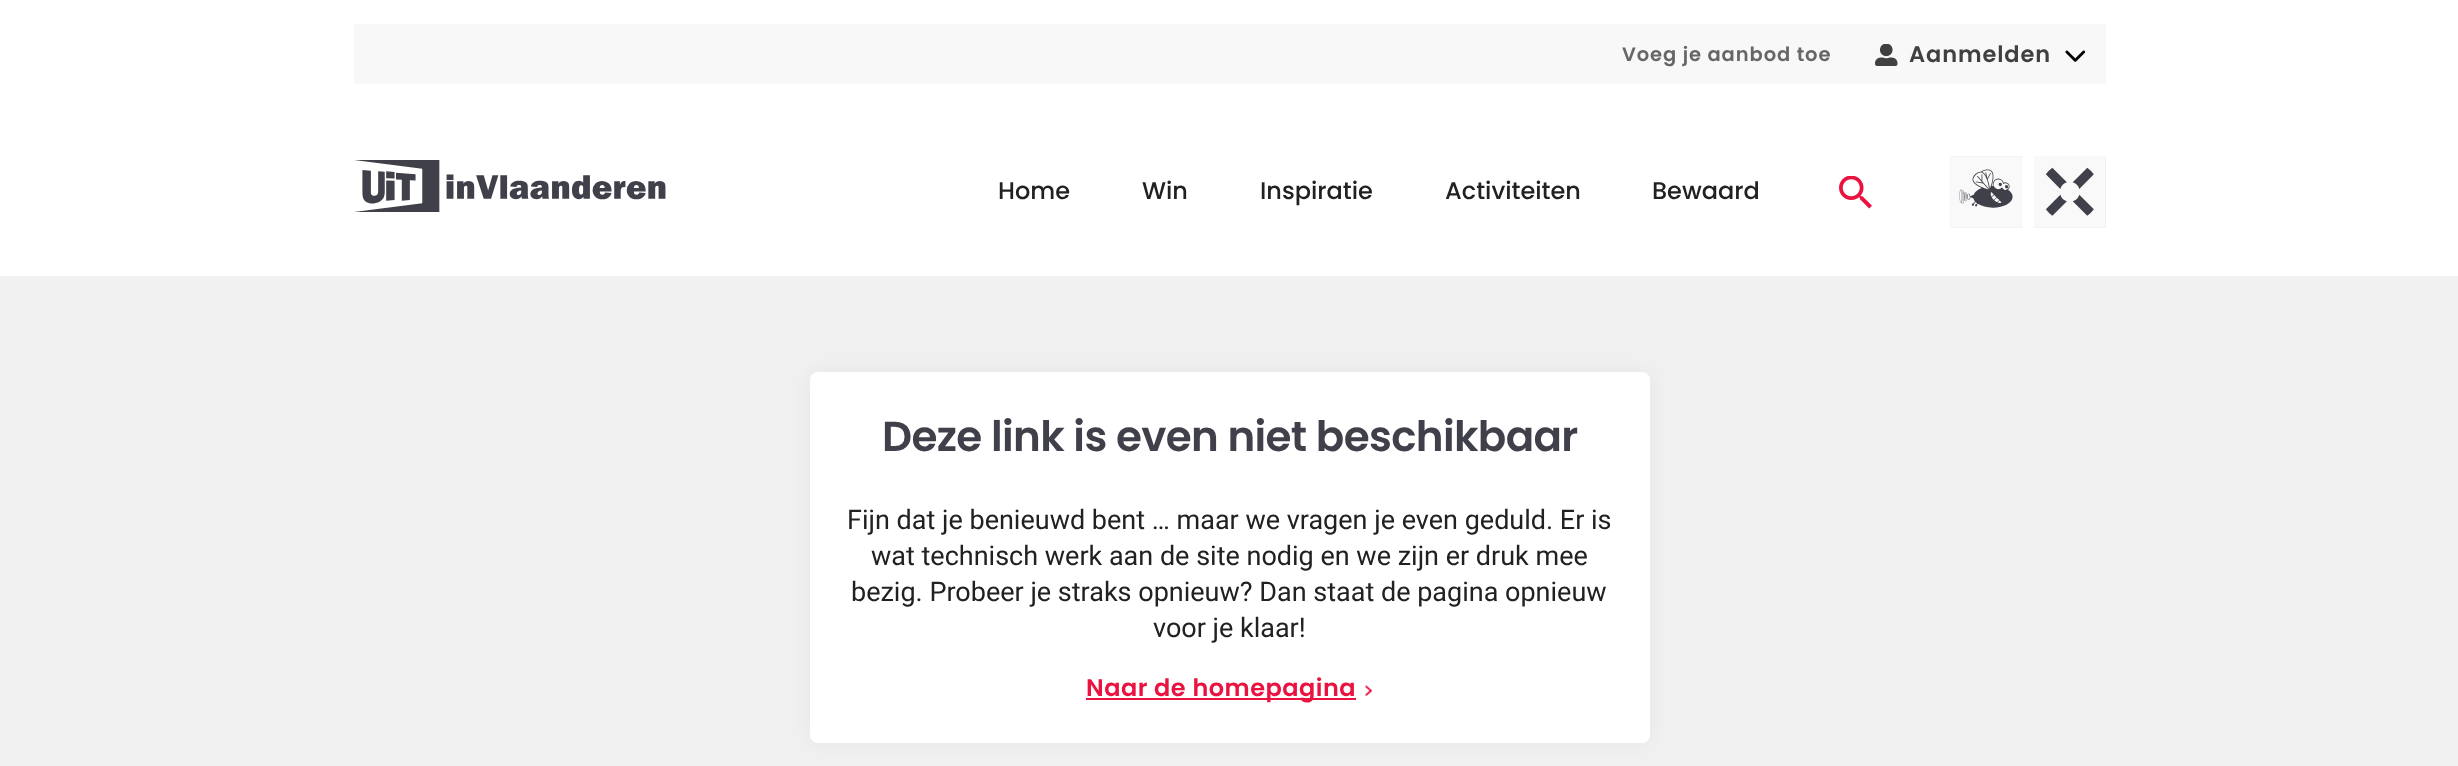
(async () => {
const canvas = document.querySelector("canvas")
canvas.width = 2458
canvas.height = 766
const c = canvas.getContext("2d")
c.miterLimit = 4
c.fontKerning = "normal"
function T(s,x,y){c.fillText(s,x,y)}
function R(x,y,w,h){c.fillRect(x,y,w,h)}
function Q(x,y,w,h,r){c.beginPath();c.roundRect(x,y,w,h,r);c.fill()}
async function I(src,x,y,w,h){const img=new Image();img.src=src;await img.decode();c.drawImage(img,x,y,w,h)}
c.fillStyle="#fff"
R(0,0,2458,766)
c.fillStyle="#f8f8f8"
R(354,24,1752,60)
c.letterSpacing="0.9px"
c.font="600 19.5px Poppins"
c.fillStyle="#666"
T("Voeg je aanbod toe",1622,61)
await I("1.png",1875,44,23,22)
c.font="600 22.5px Poppins"
c.fillStyle="#404040"
T("Aanmelden",1909,62)
await I("2.png",2065,50,21,12)
await I("3.png",354,160,312,52)
c.letterSpacing="0px"
c.font="500 24px Poppins"
c.fillStyle="#212121"
T("Home",998,199)
T("Win",1142,199)
T("Inspiratie",1260,199)
T("Activiteiten",1445,199)
T("Bewaard",1652,199)
await I("4.png",1839,176,33,33)
c.fillStyle="#e1e1e1"
R(1950,156,72,72)
await I("5.png",1950,156,72,72)
R(2034,156,72,72)
await I("6.png",2034,156,72,72)
c.fillStyle="#f1f1f1"
R(0,276,2458,490)
c.fillStyle="#0000000d"
c.filter="blur(12px)"
c.beginPath()
c.roundRect(810,372,840,371,8)
c.fill()
c.filter="none"
c.fillStyle="#fff"
Q(810,372,840,371,8)
c.letterSpacing="-0.65px"
c.font="600 42px Poppins"
c.fillStyle="#40404a"
T("Deze link is even niet beschikbaar",882,451)
c.letterSpacing="0px"
c.font="27px Roboto"
c.fillStyle="#212121"
T("Fijn dat je benieuwd bent … maar we vragen je even geduld. Er is",847,529)
T("wat technisch werk aan de site nodig en we zijn er druk mee",871,565)
T("bezig. Probeer je straks opnieuw? Dan staat de pagina opnieuw",851,601)
T("voor je klaar!",1153,637)
c.fillStyle="#ea1340"
R(1086,698,270,2)
c.letterSpacing="0.5px"
c.font="600 24px Poppins"
T("Naar de homepagina",1086,696)
await I("7.png",1365,685,8,12)
})()
